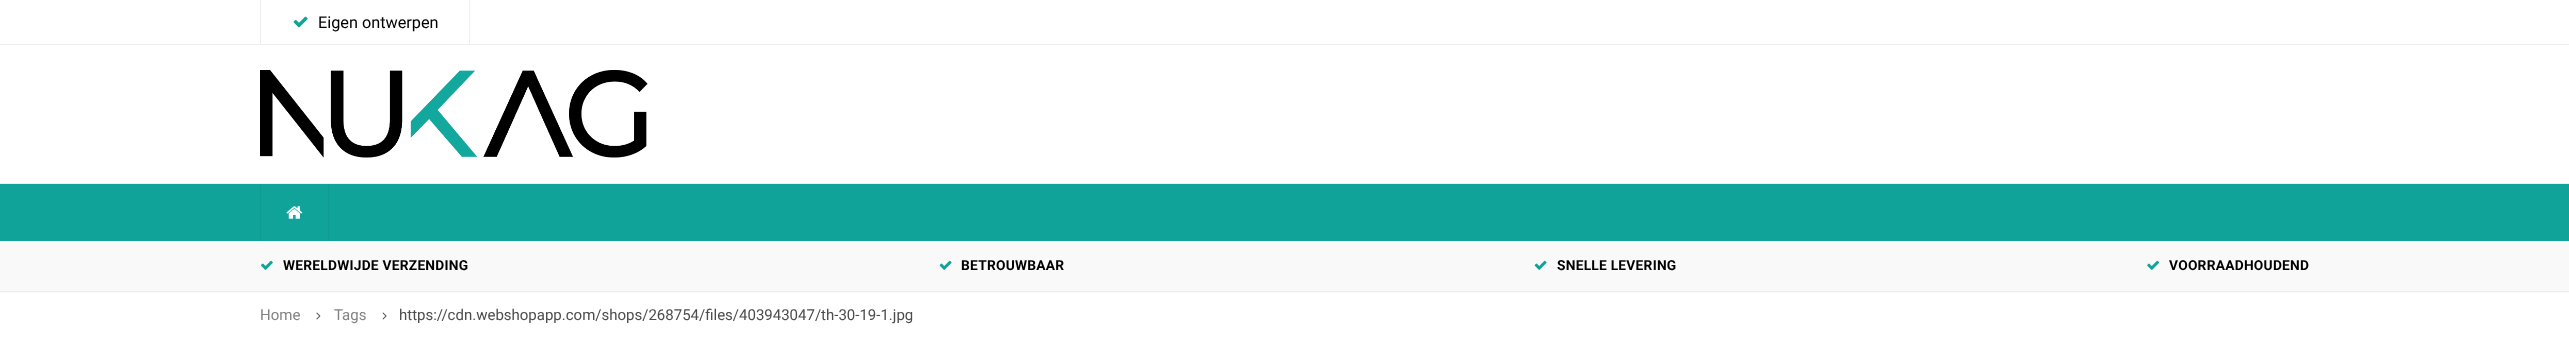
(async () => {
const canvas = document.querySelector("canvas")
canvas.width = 2569
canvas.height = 339
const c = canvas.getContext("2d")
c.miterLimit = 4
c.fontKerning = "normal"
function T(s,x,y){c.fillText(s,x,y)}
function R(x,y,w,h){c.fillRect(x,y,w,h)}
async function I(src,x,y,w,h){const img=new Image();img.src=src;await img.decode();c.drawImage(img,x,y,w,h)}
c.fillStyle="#fff"
R(0,0,2569,339)
c.fillStyle="#eee"
R(0,44,2569,1)
R(469,0,1,44)
R(260,0,1,44)
await I("1.png",293,16,15,12)
c.font="16.25px Roboto"
c.fillStyle="#000"
T("Eigen ontwerpen",318,28)
c.fillStyle="#eee"
R(0,183,2569,1)
await I("2.png",260,70,388,88)
c.fillStyle="#0fa399"
R(0,184,2569,57)
c.fillStyle="#0e9b91"
R(328,184,1,57)
R(260,184,1,57)
await I("3.png",286,206,17,13)
c.fillStyle="#f9f9f9"
R(0,241,2569,52)
c.fillStyle="#eee"
R(0,291,2569,1)
await I("4.png",261,260,12,10)
c.letterSpacing="0.25px"
c.font="bold 13.75px Roboto"
c.fillStyle="#000"
T("WERELDWIJDE VERZENDING",283,270)
await I("5.png",939,260,13,10)
T("BETROUWBAAR",961,270)
await I("5.png",1534,260,13,10)
T("SNELLE LEVERING",1557,270)
await I("6.png",2147,260,12,10)
T("VOORRAADHOUDEND",2169,270)
c.letterSpacing="0px"
c.font="15px Roboto"
c.fillStyle="#828282"
T("Home",260,320)
await I("7.png",316,312,5,8)
T("Tags",334,320)
await I("8.png",382,312,5,8)
c.fillStyle="#4c4c4c"
T("https://cdn.webshopapp.com/shops/268754/files/403943047/th-30-19-1.jpg",399,320)
})()
